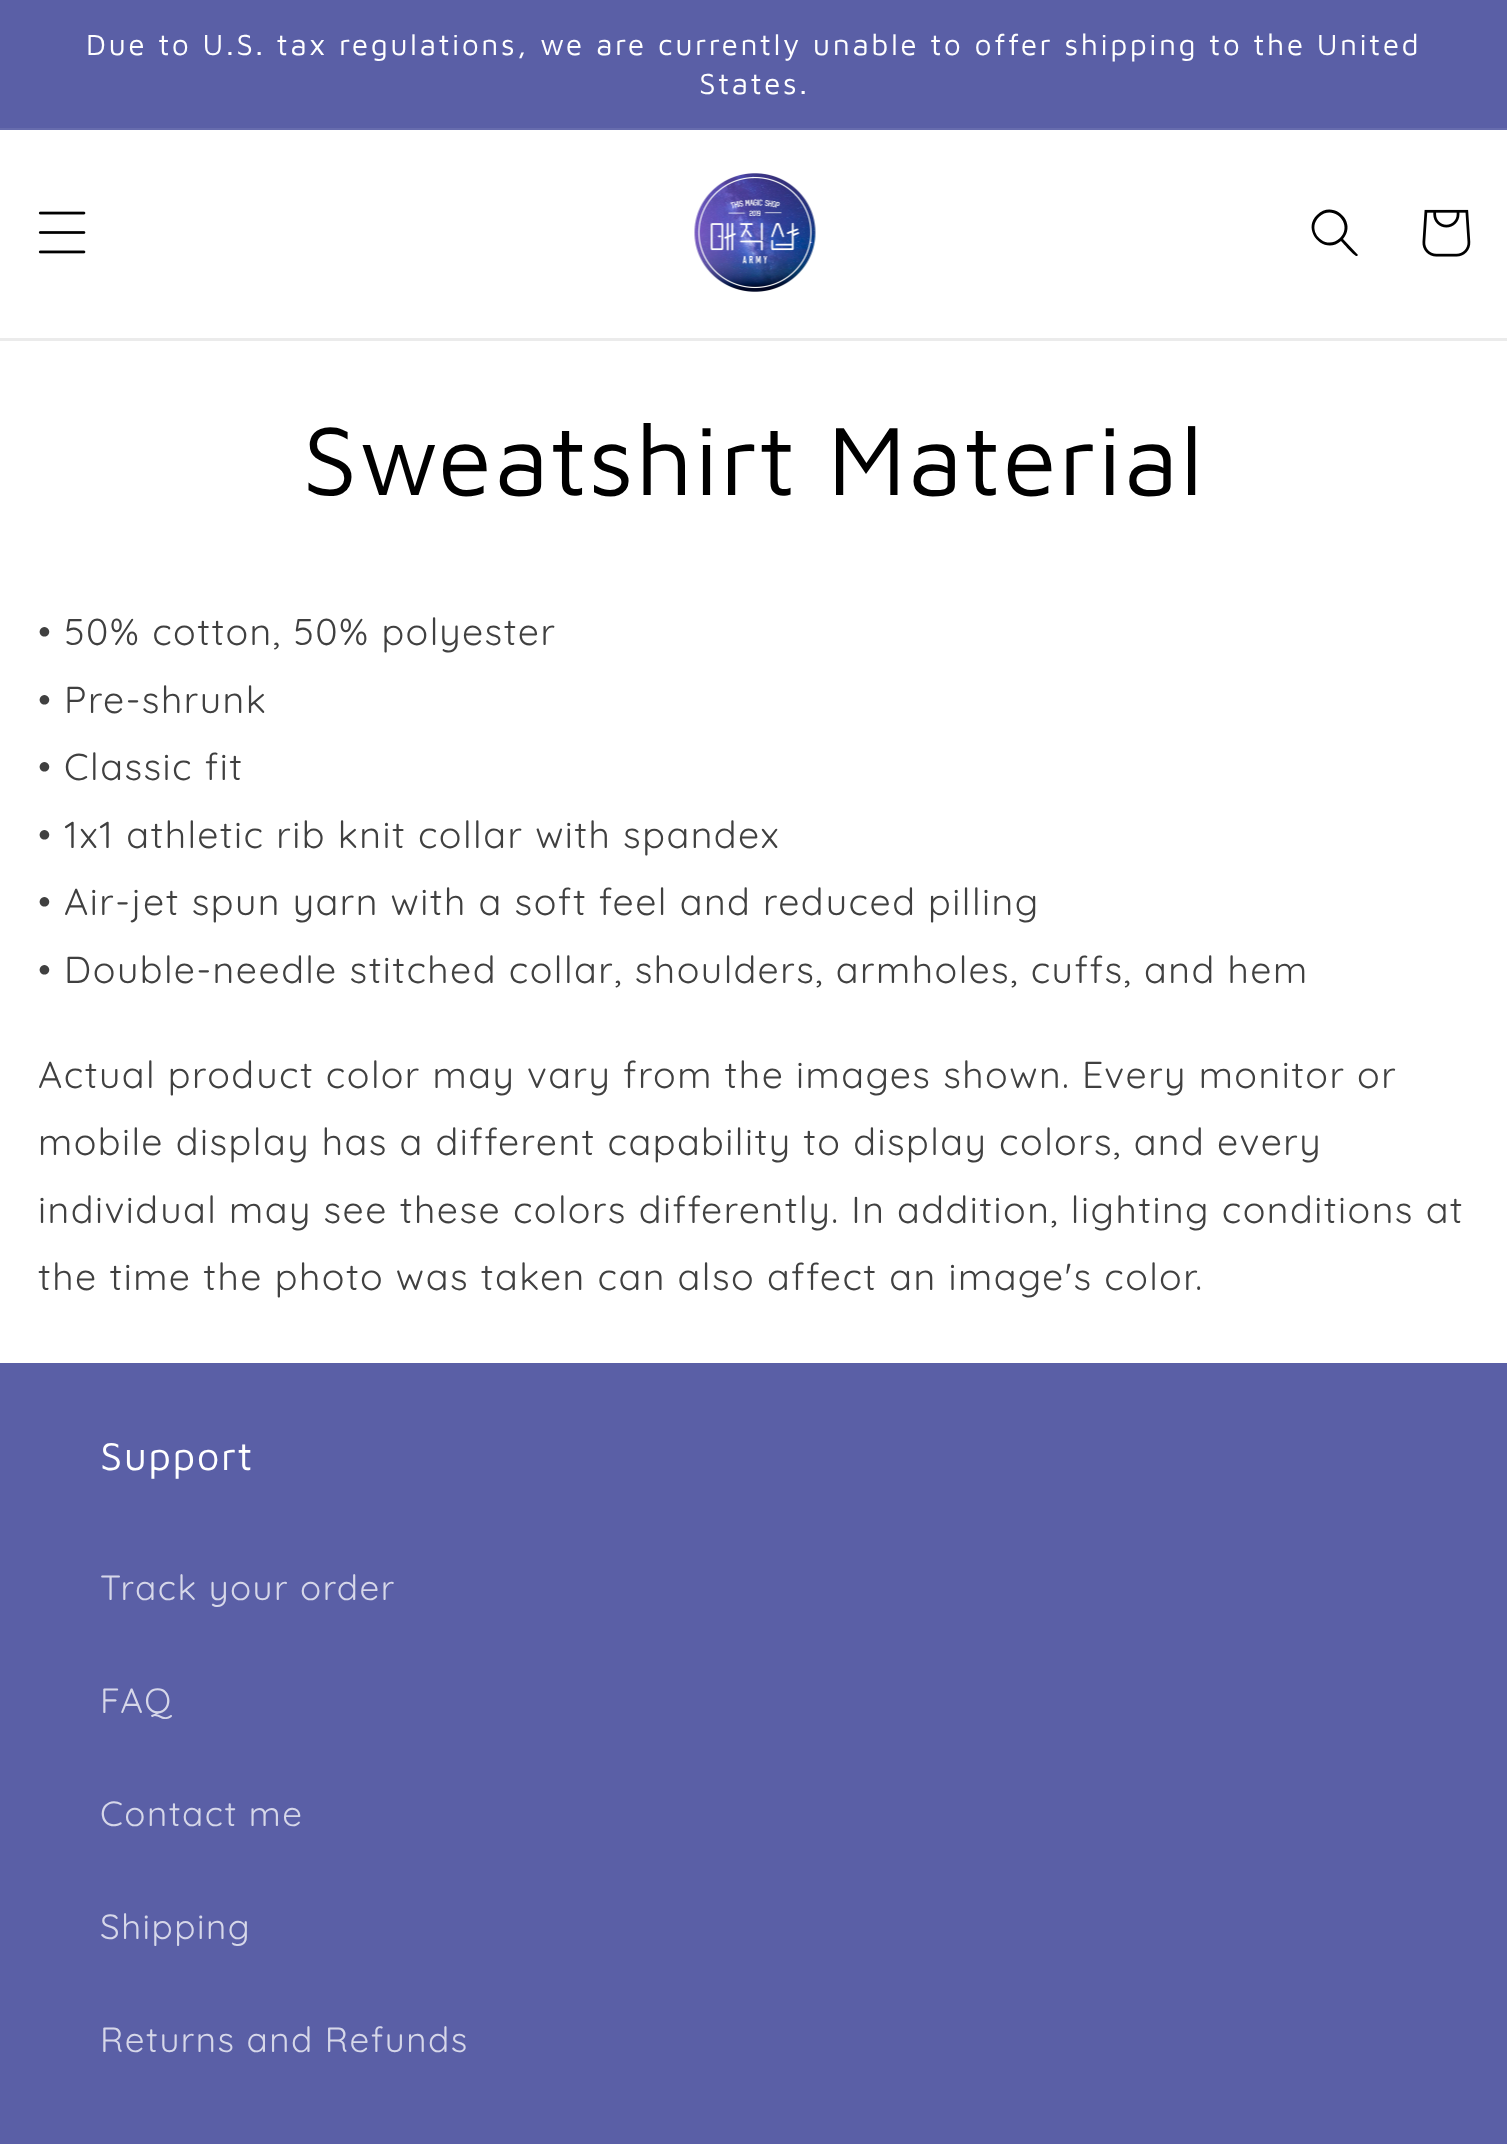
(async () => {
const canvas = document.querySelector("canvas")
canvas.width = 1507
canvas.height = 2144
const c = canvas.getContext("2d")
c.miterLimit = 4
c.fontKerning = "normal"
function T(s,x,y){c.fillText(s,x,y)}
function R(x,y,w,h){c.fillRect(x,y,w,h)}
async function I(src,x,y,w,h){const img=new Image();img.src=src;await img.decode();c.drawImage(img,x,y,w,h)}
let path
c.fillStyle="#fff"
R(0,0,1507,2144)
c.fillStyle="#5a5fa6"
R(0,0,1507,128)
c.fillStyle="#676cad"
R(0,128,1507,2)
c.letterSpacing="2.5px"
c.font="30px Maven Pro"
c.fillStyle="#fff"
T("Due to U.S. tax regulations, we are currently unable to offer shipping to the United",86,55)
T("States.",699,94)
c.fillStyle="#ebebeb"
R(0,338,1507,3)
await I("1.png",38,211,48,43)
await I("2.png",694,173,122,119)
c.fillStyle="#000"
path = new Path2D("M1340 238c-14 14-35-7-21-21c14-14 35 7 21 21zm1 3c-17 15-40-11-24-26c16-16 41 7 26 24l15 16l-1 1c-2 1-14-13-16-15z")
c.fill(path,"evenodd")
await I("3.png",1422,209,49,48)
c.letterSpacing="1.5px"
c.font="100px Maven Pro"
T("Sweatshirt Material",302,495)
c.font="37.5px Quicksand"
c.fillStyle="#404040"
T("• 50% cotton, 50% polyester",38,645)
T("• Pre-shrunk",38,713)
T("• Classic fit",38,780)
T("• 1x1 athletic rib knit collar with spandex",38,848)
T("• Air-jet spun yarn with a soft feel and reduced pilling",38,915)
T("• Double-needle stitched collar, shoulders, armholes, cuffs, and hem",38,983)
T("Actual product color may vary from the images shown. Every monitor or",38,1088)
T("mobile display has a different capability to display colors, and every",38,1155)
T("individual may see these colors differently. In addition, lighting conditions at",38,1223)
T("the time the photo was taken can also affect an image's color.",38,1290)
c.fillStyle="#5a5fa6"
R(0,1363,1507,781)
c.font="40px Maven Pro"
c.fillStyle="#fff"
T("Support",100,1470)
c.font="35px Quicksand"
c.fillStyle="#d6d7e9"
T("Track your order",100,1600)
T("FAQ",100,1713)
T("Contact me",100,1826)
T("Shipping",100,1939)
T("Returns and Refunds",100,2052)
})()
